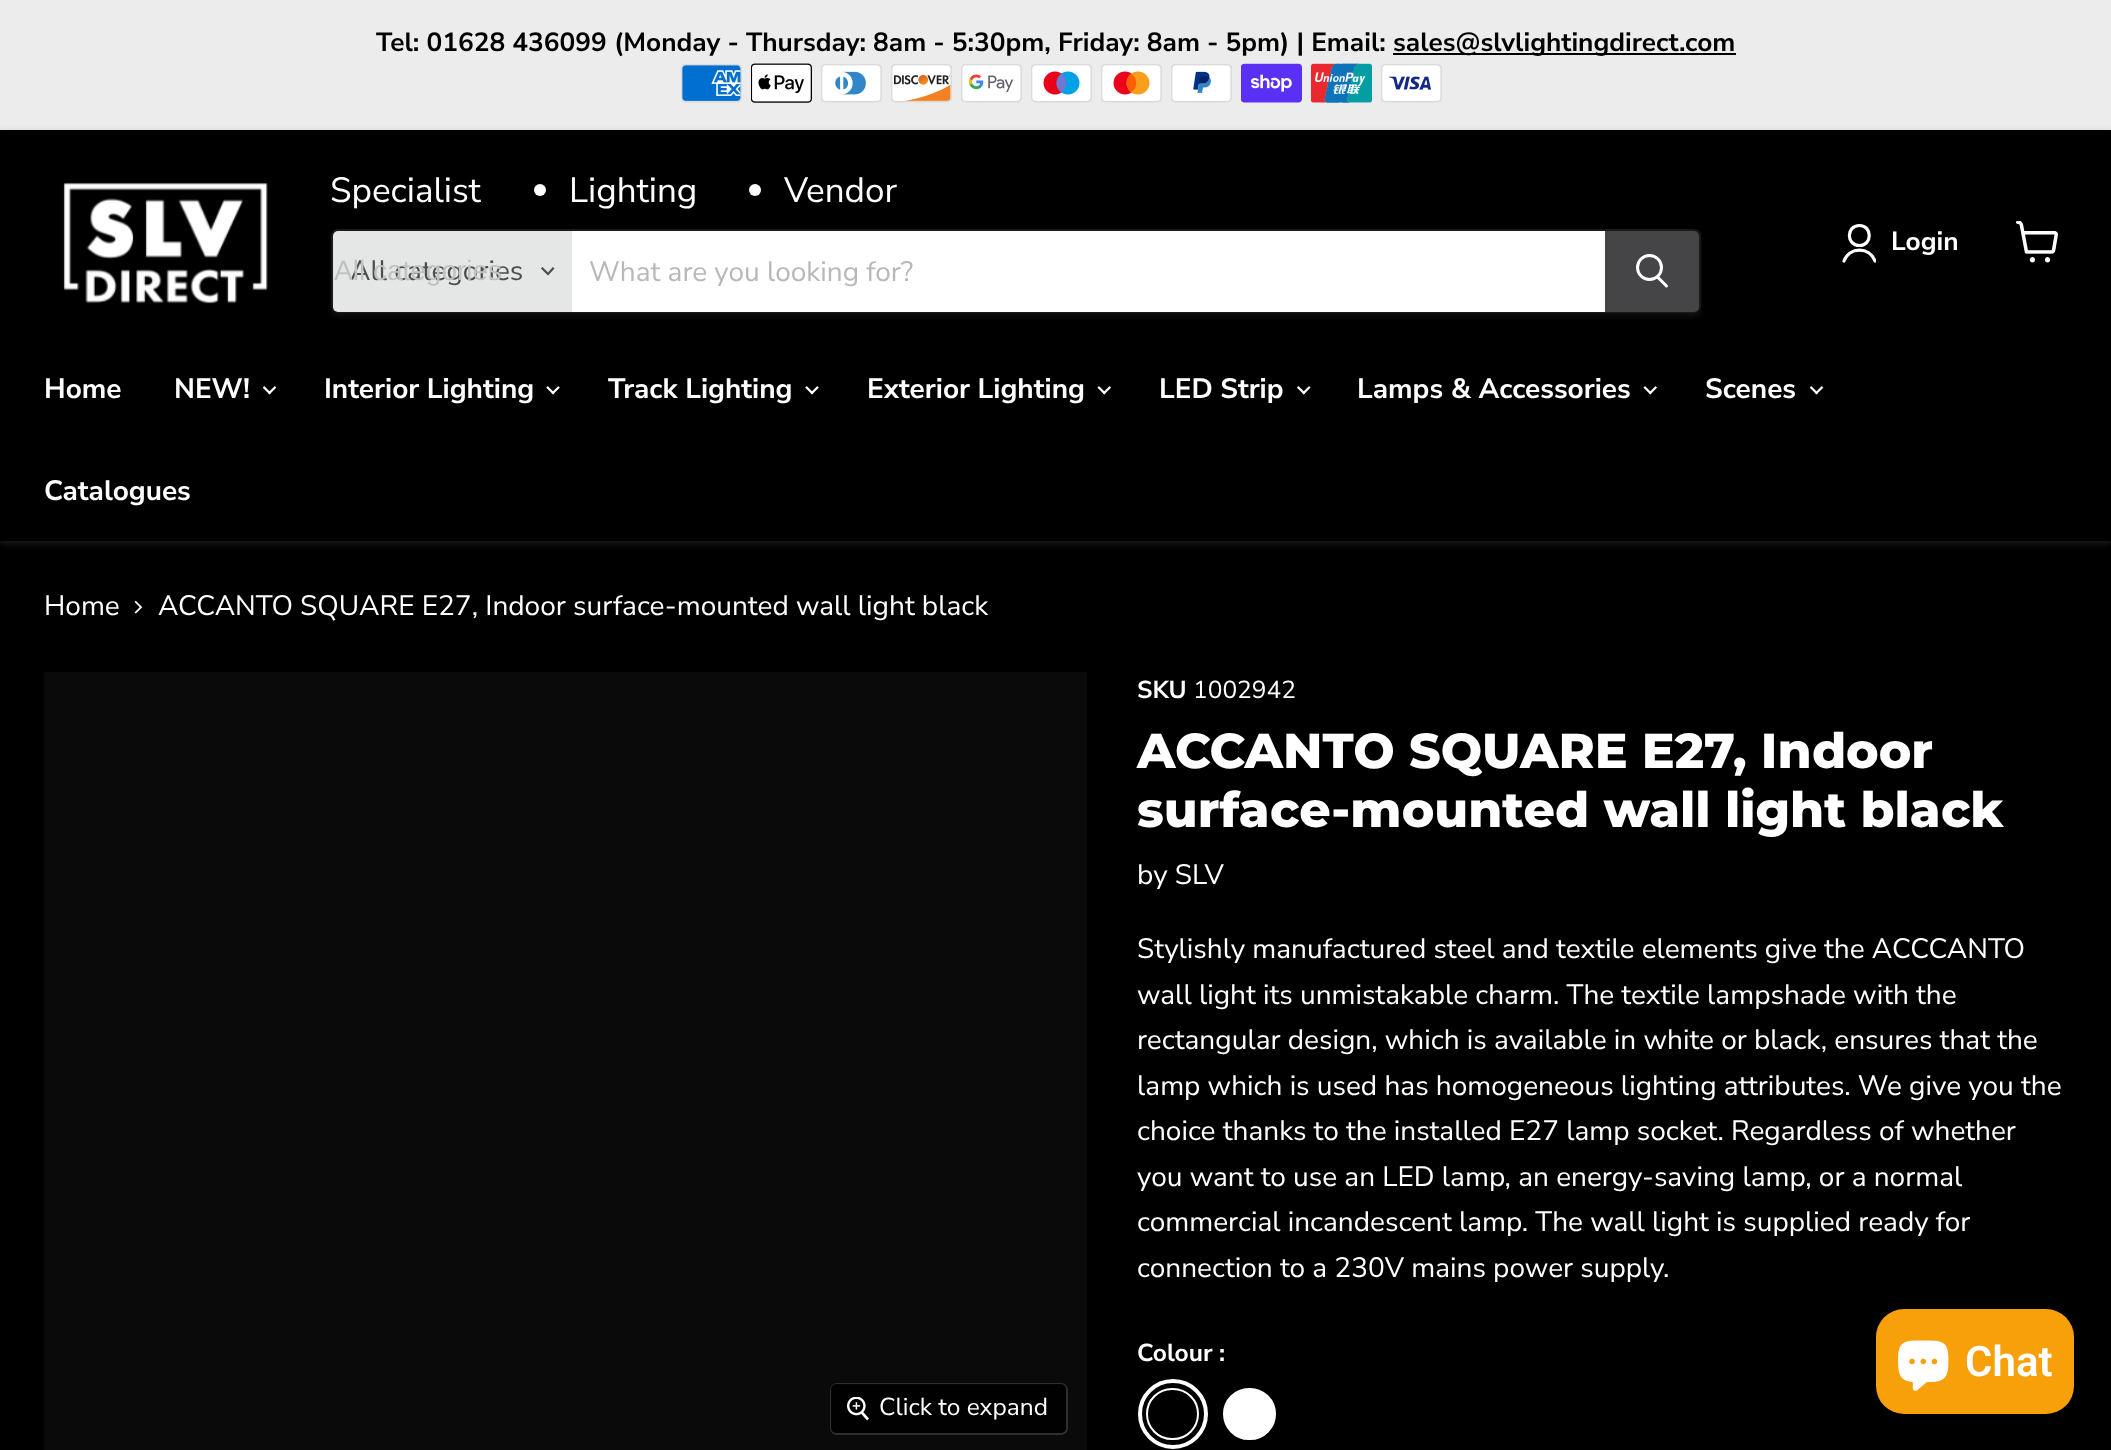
(async () => {
const canvas = document.querySelector("canvas")
canvas.width = 2111
canvas.height = 1450
const c = canvas.getContext("2d")
c.miterLimit = 4
c.fontKerning = "normal"
function T(s,x,y){c.fillText(s,x,y)}
function R(x,y,w,h){c.fillRect(x,y,w,h)}
function Q(x,y,w,h,r){c.beginPath();c.roundRect(x,y,w,h,r);c.fill()}
async function I(src,x,y,w,h){const img=new Image();img.src=src;await img.decode();c.drawImage(img,x,y,w,h)}
let path
c.fillStyle="#000"
R(0,0,2111,1450)
c.fillStyle="#ececec"
R(0,0,2111,130)
c.font="bold 26.25px Nunito Sans"
c.fillStyle="#000"
T("Tel: 01628 436099 (Monday - Thursday: 8am - 5:30pm, Friday: 8am - 5pm) | Email:",376,51)
R(1393,53,343,2)
T("sales@slvlightingdirect.com",1393,51)
await I("1.png",681,64,61,39)
await I("2.png",751,63,61,40)
await I("3.png",821,64,61,39)
await I("4.png",891,64,61,39)
await I("5.png",961,64,61,39)
await I("6.png",1031,64,61,39)
await I("7.png",1101,64,61,39)
await I("8.png",1171,64,61,39)
await I("9.png",1241,63,61,40)
await I("10.png",1311,63,61,40)
await I("11.png",1381,64,61,39)
c.fillStyle="#80808040"
c.filter="blur(3.5px)"
c.beginPath()
c.rect(0,131,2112,412)
c.fill()
c.filter="none"
c.fillStyle="#000"
R(0,130,2111,411)
await I("12.png",63,182,205,122)
c.font="35px Nunito Sans"
c.fillStyle="#fff"
T("Specialist",330,202)
c.beginPath()
c.arc(540,190,6,0,7)
c.fill()
T("Lighting",569,202)
c.beginPath()
c.arc(755,190,6,0,7)
c.fill()
T("Vendor",784,202)
c.save()
path = new Path2D("M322 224h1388v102h-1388zm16 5h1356c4 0 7 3 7 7v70c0 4-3 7-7 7h-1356c-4 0-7-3-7-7v-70c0-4 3-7 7-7z")
c.clip(path,"evenodd")
c.fillStyle="#8080801c"
c.filter="blur(2.5px)"
c.beginPath()
c.roundRect(331,233,1370,84,7)
c.fill()
c.filter="none"
c.restore()
c.beginPath()
c.roundRect(332,230,1368,82,6)
c.strokeStyle="#80808033"
c.lineWidth=2
c.stroke()
c.fillStyle="#e4e7e5"
c.beginPath()
c.roundRect(333,231,239,81,[5,0,0,5])
c.fill()
c.font="28px Nunito Sans"
c.fillStyle="#4d4d4d"
T("All categories",350,280)
c.font="28px Liberation Sans"
c.fillStyle="#c0c2c0"
T("All categories",334,280)
path = new Path2D("M548 274l5-5.5m-5 5.5l-5.5-5.5")
c.strokeStyle="#4d4d4d"
c.lineWidth=2.2
c.lineCap="square"
c.stroke(path)
c.fillStyle="#fff"
R(572,231,1033,81)
c.font="28px Nunito Sans"
c.fillStyle="#b8b8b8"
T("What are you looking for?",589,281)
c.fillStyle="#454547"
c.beginPath()
c.roundRect(1606,232,92,79,[0,4,4,0])
c.fill()
c.strokeStyle="#454547"
c.lineWidth=2
c.stroke()
path = new Path2D("M1666.5 286l-8.5-8.5")
c.strokeStyle="#fff"
c.lineWidth=3
c.lineCap="round"
c.stroke(path)
c.beginPath()
c.arc(1649.5,267.5,12,0,7)
c.stroke()
path = new Path2D("M1859.5 245.5c13 0 13-20 0-20c-13.5 0-13.5 20 0 20z")
c.lineWidth=3.2
c.lineJoin="round"
c.stroke(path)
c.save()
c.beginPath()
c.rect(1841,222,35,41)
c.clip()
path = new Path2D("M1875 261c-5.5-14.5-25.5-14.5-31 0")
c.stroke(path)
c.restore()
c.font="bold 26.25px Nunito Sans"
c.fillStyle="#fff"
T("Login",1891,250)
await I("13.png",2016,221,42,42)
c.font="bold 28px Nunito Sans"
T("Home",44,398)
T("NEW!",174,398)
await I("14.png",263,386,14,9)
T("Interior Lighting",324,398)
await I("15.png",546,386,14,9)
T("Track Lighting",608,398)
await I("15.png",805,386,14,9)
T("Exterior Lighting",867,398)
await I("16.png",1097,386,14,9)
T("LED Strip",1159,398)
await I("17.png",1297,386,14,9)
T("Lamps & Accessories",1357,398)
await I("16.png",1643,386,14,9)
T("Scenes",1705,398)
await I("14.png",1810,386,14,9)
T("Catalogues",44,500)
c.font="28px Nunito Sans"
T("Home",44,615)
await I("18.png",134,600,9,14)
T("ACCANTO SQUARE E27, Indoor surface-mounted wall light black",158,615)
c.font="bold 24.5px Nunito Sans"
T("SKU",1137,698)
c.font="24.5px Nunito Sans"
T("1002942",1193,698)
c.font="800 49px Montserrat"
T("ACCANTO SQUARE E27, Indoor",1137,768)
T("surface-mounted wall light black",1137,827)
c.font="28px Nunito Sans"
T("by SLV",1137,884)
T("Stylishly manufactured steel and textile elements give the ACCCANTO",1137,958)
T("wall light its unmistakable charm. The textile lampshade with the",1137,1004)
T("rectangular design, which is available in white or black, ensures that the",1137,1049)
T("lamp which is used has homogeneous lighting attributes. We give you the",1137,1095)
T("choice thanks to the installed E27 lamp socket. Regardless of whether",1137,1140)
T("you want to use an LED lamp, an energy-saving lamp, or a normal",1137,1186)
T("commercial incandescent lamp. The wall light is supplied ready for",1137,1231)
T("connection to a 230V mains power supply.",1137,1277)
c.font="bold 24.5px Nunito Sans"
T("Colour :",1137,1361)
c.beginPath()
c.roundRect(1147,1389,51,50,25)
c.lineWidth=2
c.lineJoin="miter"
c.stroke()
c.beginPath()
c.arc(1173,1414,33,0,7)
c.lineWidth=4
c.stroke()
c.beginPath()
c.roundRect(1224,1389,51,50,25)
c.fill()
c.lineWidth=2
c.stroke()
c.fillStyle="#0a0a0a"
R(44,672,1043,778)
c.beginPath()
c.roundRect(831,1384,236,50,6)
c.strokeStyle="#2f2f2f"
c.stroke()
c.fillStyle="#000000e6"
Q(831,1384,235,49,5)
await I("19.png",847,1397,22,24)
c.font="24.5px Nunito Sans"
c.fillStyle="#fff"
T("Click to expand",879,1415)
c.fillStyle="#f7a009"
Q(1876,1309,198,105,28)
await I("20.png",1898,1340,51,51)
c.font="600 42px Roboto"
c.fillStyle="#fff"
T("Chat",1965,1376)
})()
